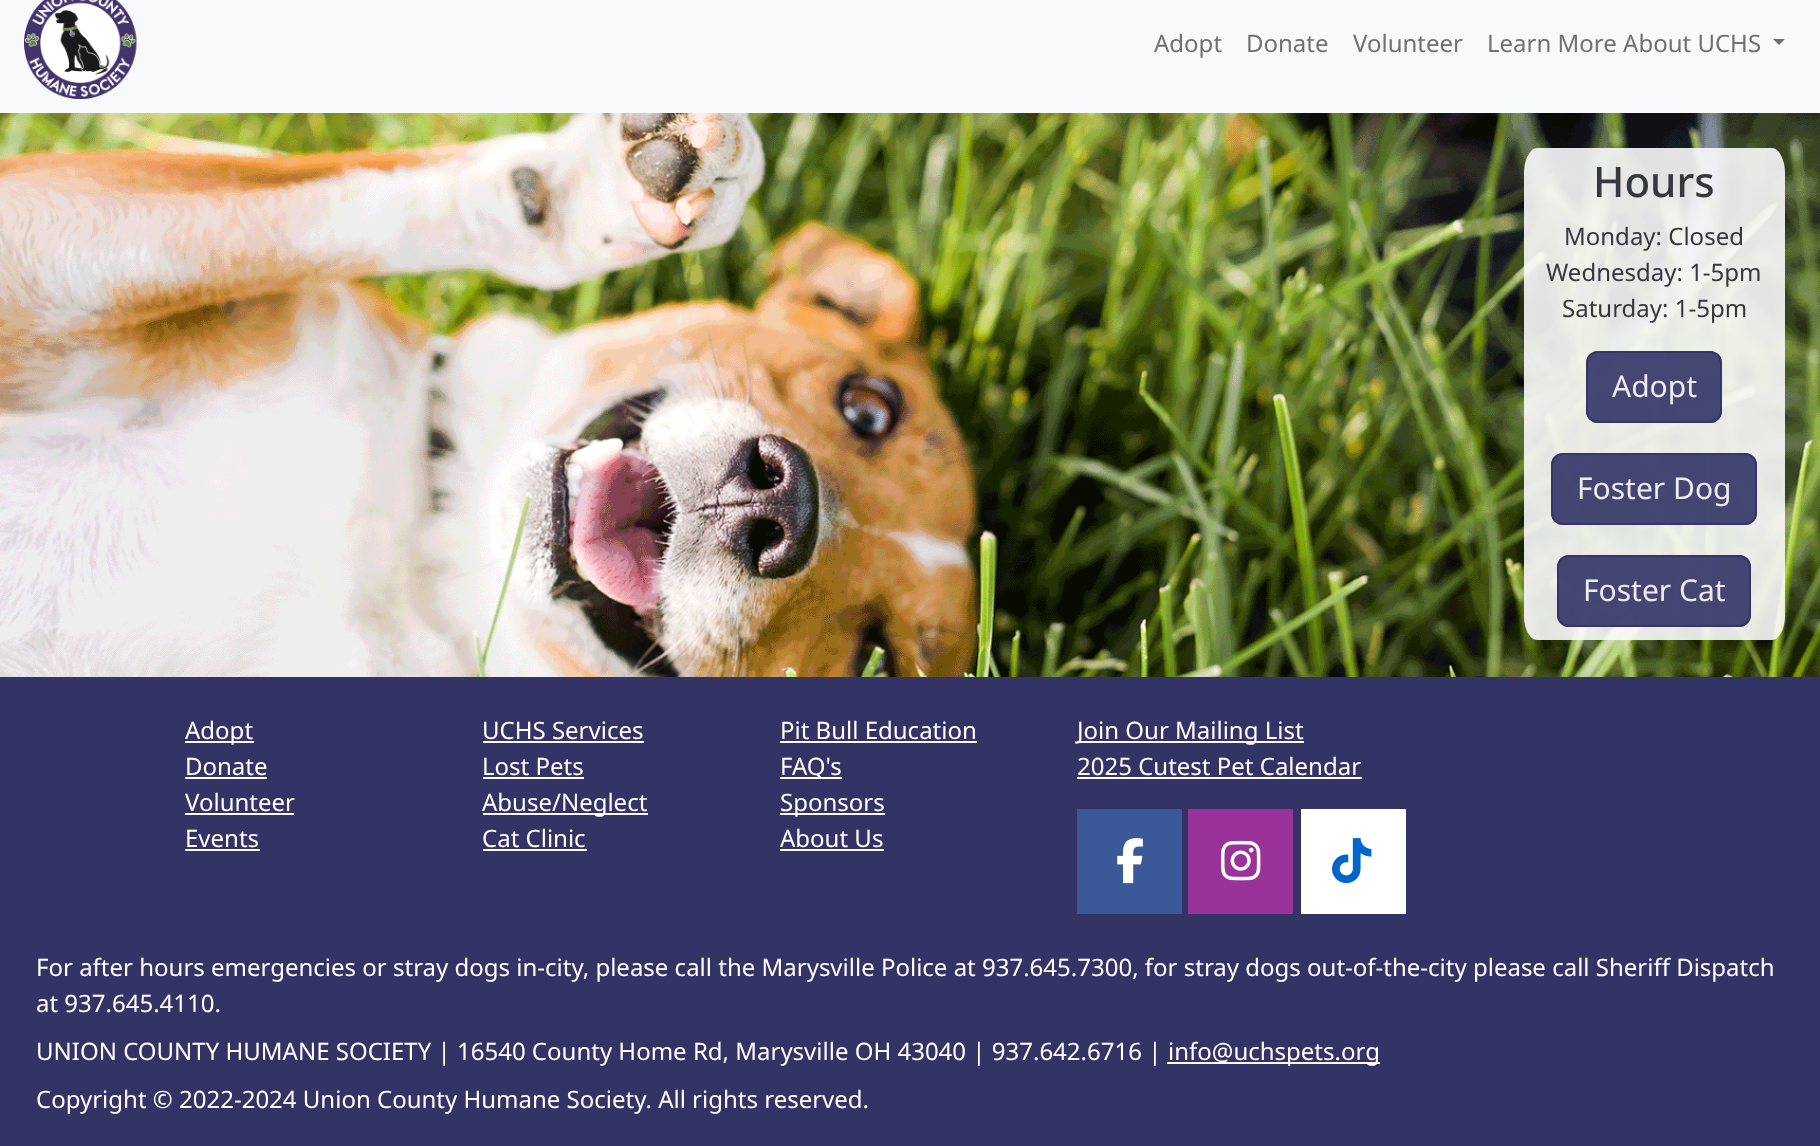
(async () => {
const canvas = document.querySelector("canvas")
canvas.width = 1820
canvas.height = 1146
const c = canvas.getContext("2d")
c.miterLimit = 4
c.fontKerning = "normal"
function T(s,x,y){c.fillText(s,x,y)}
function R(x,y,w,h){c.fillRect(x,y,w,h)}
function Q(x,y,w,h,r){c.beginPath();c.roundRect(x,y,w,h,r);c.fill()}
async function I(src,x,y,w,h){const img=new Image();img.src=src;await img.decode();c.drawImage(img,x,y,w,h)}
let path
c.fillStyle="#fff"
R(0,0,1820,1146)
await I("1.png",0,113,1820,564)
c.fillStyle="#f8f9fa"
R(0,0,1820,113)
await I("2.png",24,0,113,99)
c.font="24px Noto Sans"
c.fillStyle="#707071"
T("Adopt",1154,52)
T("Donate",1246,52)
T("Volunteer",1353,52)
T("Learn More About UCHS",1487,52)
path = new Path2D("M1773 39h12l-6 6z")
c.fill(path)
c.fillStyle="#f8f9fae6"
path = new Path2D("M1537 148h235c7 0 13 12 13 25v443c0 13-6 24-13 24h-235c-7 0-13-11-13-24v-443c0-13 6-25 13-25z")
c.fill(path)
c.font="500 42px Noto Sans"
c.fillStyle="#35383c"
T("Hours",1593,197)
c.font="24px Noto Sans"
T("Monday: Closed",1564,245)
T("Wednesday: 1-5pm",1546,281)
T("Saturday: 1-5pm",1562,317)
c.fillStyle="#333366e6"
Q(1586,351,136,72,12)
c.beginPath()
c.roundRect(1587,352,134,70,11)
c.strokeStyle="#333366e6"
c.lineWidth=2
c.stroke()
c.font="30px Noto Sans"
c.fillStyle="#ececf1"
T("Adopt",1612,397)
c.fillStyle="#333366e6"
Q(1551,453,206,72,12)
c.beginPath()
c.roundRect(1552,454,204,70,11)
c.stroke()
c.fillStyle="#ececf1"
T("Foster Dog",1577,499)
c.fillStyle="#333366e6"
Q(1557,555,194,72,12)
c.beginPath()
c.roundRect(1558,556,192,70,11)
c.stroke()
c.fillStyle="#ececf1"
T("Foster Cat",1583,601)
c.fillStyle="#336"
R(0,677,1820,469)
c.fillStyle="#fff"
R(185,741,69,2)
c.font="24px Noto Sans"
T("Adopt",185,739)
T("Donate",185,775)
R(185,777,82,2)
T("Volunteer",185,811)
R(185,813,109,2)
T("Events",185,847)
R(185,849,75,2)
T("UCHS Services",482,739)
R(483,741,161,2)
T("Lost Pets",482,775)
R(483,777,101,2)
R(483,813,165,2)
T("Abuse/Neglect",482,811)
T("Cat Clinic",482,847)
R(483,849,104,2)
T("Pit Bull Education",780,739)
R(780,741,197,2)
R(780,777,62,2)
T("FAQ's",780,775)
R(780,813,105,2)
T("Sponsors",780,811)
T("About Us",780,847)
R(780,849,104,2)
R(1077,741,227,2)
T("Join Our Mailing List",1077,739)
T("2025 Cutest Pet Calendar",1077,775)
R(1077,777,285,2)
c.fillStyle="#3b5998"
R(1077,809,105,105)
await I("3.png",1117,838,26,46)
c.fillStyle="#939"
R(1188,809,105,105)
await I("4.png",1221,840,40,41)
c.fillStyle="#fff"
R(1301,809,105,105)
await I("5.png",1332,838,40,46)
T("For after hours emergencies or stray dogs in-city, please call the Marysville Police at 937.645.7300, for stray dogs out-of-the-city please call Sheriff Dispatch",36,976)
T("at 937.645.4110.",36,1012)
T("UNION COUNTY HUMANE SOCIETY | 16540 County Home Rd, Marysville OH 43040 | 937.642.6716 |",36,1060)
R(1167,1062,213,2)
T("info@uchspets.org",1168,1060)
T("Copyright © 2022-2024 Union County Humane Society. All rights reserved.",36,1108)
})()
